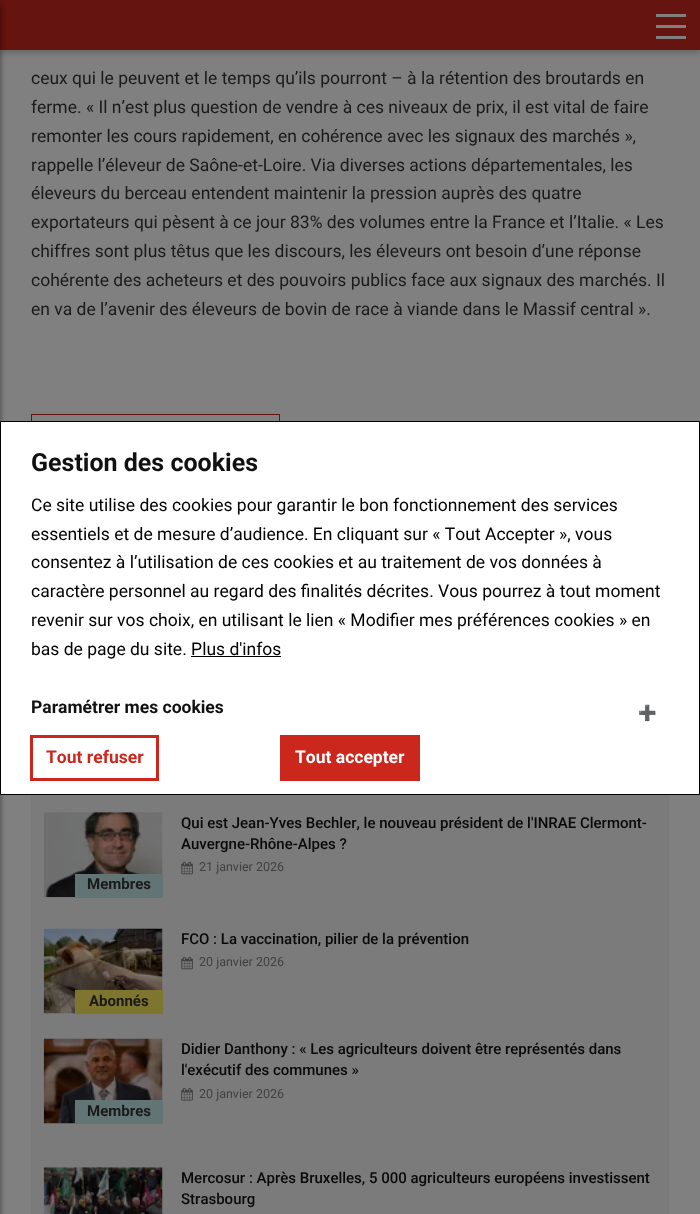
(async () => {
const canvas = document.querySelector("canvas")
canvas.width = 700
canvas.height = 1214
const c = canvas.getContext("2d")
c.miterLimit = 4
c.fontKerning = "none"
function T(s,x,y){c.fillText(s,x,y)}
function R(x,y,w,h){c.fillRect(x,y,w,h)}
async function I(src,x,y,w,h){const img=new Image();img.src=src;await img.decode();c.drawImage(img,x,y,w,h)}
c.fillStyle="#808080"
R(0,0,700,1214)
c.fillStyle="#00000033"
c.filter="blur(3px)"
c.beginPath()
c.rect(0,3,700,50)
c.fill()
c.filter="none"
c.fillStyle="#66140f"
R(0,0,700,50)
c.fillStyle="#00000033"
c.filter="blur(2.5px)"
c.beginPath()
c.rect(-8,4,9,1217)
c.fill()
c.filter="none"
c.fillStyle="#808080"
R(656,14,30,3)
R(656,25,30,3)
R(656,36,30,3)
c.fillStyle="#00000033"
c.filter="blur(2.5px)"
c.beginPath()
c.rect(-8,4,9,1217)
c.fill()
c.filter="none"
c.font="17.5px Roboto"
c.fillStyle="#1a1a1a"
T("ceux qui le peuvent et le temps qu’ils pourront – à la rétention des broutards en",31,84)
T("ferme. « Il n’est plus question de vendre à ces niveaux de prix, il est vital de faire",31,113)
T("remonter les cours rapidement, en cohérence avec les signaux des marchés »,",31,142)
T("rappelle l’éleveur de Saône-et-Loire. Via diverses actions départementales, les",31,171)
T("éleveurs du berceau entendent maintenir la pression auprès des quatre",31,199)
T("exportateurs qui pèsent à ce jour 83% des volumes entre la France et l’Italie. « Les",31,228)
T("chiffres sont plus têtus que les discours, les éleveurs ont besoin d’une réponse",31,257)
T("cohérente des acheteurs et des pouvoirs publics face aux signaux des marchés. Il",31,286)
T("en va de l’avenir des éleveurs de bovin de race à viande dans le Massif central ».",31,315)
c.strokeStyle="#66140f"
c.strokeRect(31.5,414.5,248,33)
c.fillStyle="#7b7b7b"
R(31,795,638,128)
c.font="500 15px Roboto"
c.fillStyle="#090909"
T("Qui est Jean-Yves Bechler, le nouveau président de l'INRAE Clermont-",181,828)
T("Auvergne-Rhône-Alpes ?",181,849)
await I("1.png",181,861,12,14)
c.font="12.5px Roboto"
c.fillStyle="#414141"
T("21 janvier 2026",199,871)
await I("2.png",44,812,119,86)
c.fillStyle="#637474"
R(75,874,88,24)
c.font="bold 15px Roboto"
c.fillStyle="#1a1a1a"
T("Membres",87,889)
c.fillStyle="#7b7b7b"
R(31,923,638,291)
c.font="500 15px Roboto"
c.fillStyle="#090909"
T("FCO : La vaccination, pilier de la prévention",181,944)
await I("1.png",181,956,12,14)
c.font="12.5px Roboto"
c.fillStyle="#414141"
T("20 janvier 2026",199,966)
await I("3.png",43,928,120,86)
c.fillStyle="#7e752f"
R(75,990,88,24)
c.font="bold 15px Roboto"
c.fillStyle="#1a1a1a"
T("Abonnés",89,1006)
c.font="500 15px Roboto"
c.fillStyle="#090909"
T("Didier Danthony : « Les agriculteurs doivent être représentés dans",181,1054)
T("l'exécutif des communes »",181,1075)
await I("4.png",181,1088,12,13)
c.font="12.5px Roboto"
c.fillStyle="#414141"
T("20 janvier 2026",199,1098)
await I("5.png",43,1038,120,86)
c.fillStyle="#637474"
R(75,1100,88,24)
c.font="bold 15px Roboto"
c.fillStyle="#1a1a1a"
T("Membres",87,1116)
await I("6.png",43,1167,120,47)
c.font="500 15px Roboto"
c.fillStyle="#090909"
T("Mercosur : Après Bruxelles, 5 000 agriculteurs européens investissent",181,1183)
T("Strasbourg",181,1204)
c.fillStyle="#fff"
c.beginPath()
c.rect(.5,421.5,699,373)
c.fill()
c.strokeStyle="#000"
c.stroke()
c.font="bold 25px Roboto"
c.fillStyle="#111"
T("Gestion des cookies",31,471)
c.font="17.5px Roboto"
c.fillStyle="#000"
T("Ce site utilise des cookies pour garantir le bon fonctionnement des services",31,511)
T("essentiels et de mesure d’audience. En cliquant sur « Tout Accepter », vous",31,540)
T("consentez à l’utilisation de ces cookies et au traitement de vos données à",31,568)
T("caractère personnel au regard des finalités décrites. Vous pourrez à tout moment",31,597)
T("revenir sur vos choix, en utilisant le lien « Modifier mes préférences cookies » en",31,626)
T("bas de page du site. Plus d'infos",31,655)
R(191,656,90,1)
c.font="bold 17.5px Roboto"
c.fillStyle="#111"
T("Paramétrer mes cookies",31,713)
c.font="bold 15px Noto Color Emoji"
T("➕",638,718)
c.strokeStyle="#cc271d"
c.lineWidth=3
c.strokeRect(31.5,736.5,126,43)
c.font="bold 17.5px Roboto"
c.fillStyle="#cc271d"
T("Tout refuser",46,763)
R(280,735,140,46)
c.fillStyle="#fff"
T("Tout accepter",295,763)
})()
